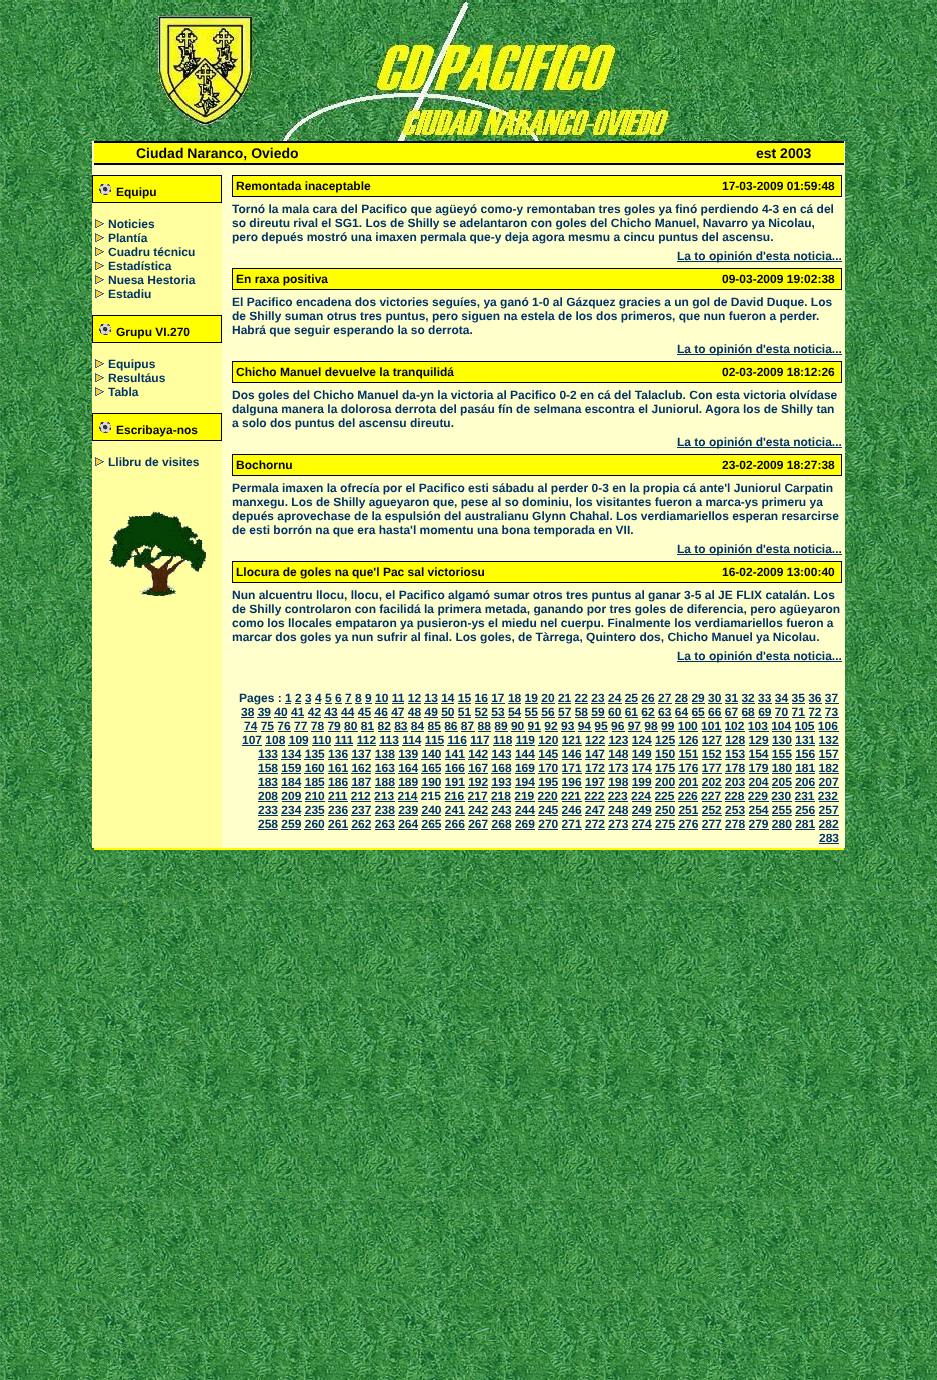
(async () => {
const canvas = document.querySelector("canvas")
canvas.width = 937
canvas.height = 1380
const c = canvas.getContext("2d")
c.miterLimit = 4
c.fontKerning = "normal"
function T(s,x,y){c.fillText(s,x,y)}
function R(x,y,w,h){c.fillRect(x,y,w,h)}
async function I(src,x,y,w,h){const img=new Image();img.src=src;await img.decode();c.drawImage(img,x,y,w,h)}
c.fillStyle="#fff"
R(0,0,937,1380)
await I("1.png",0,0,937,1380)
c.fillStyle="#ffc"
R(92,141,753,707)
await I("2.png",92,0,753,141)
c.fillStyle="#000"
R(94,141,750,2)
c.fillStyle="#ff0"
R(94,143,750,20)
c.font="bold 14px Liberation Sans"
c.fillStyle="#000"
T("Ciudad Naranco, Oviedo",136,158)
T("est 2003",756,158)
R(94,163,750,2)
c.fillStyle="#ffffa0"
R(92,203,130,645)
c.fillStyle="#000"
R(92,175,130,28)
c.fillStyle="#ff0"
R(93,176,128,26)
await I("3.png",99,184,12,11)
c.font="bold 12px Liberation Sans"
c.fillStyle="#000"
T("Equipu",116,196)
await I("4.png",95,219,9,9)
c.fillStyle="#036"
T("Noticies",108,228)
await I("4.png",95,233,9,9)
T("Plantía",108,242)
await I("4.png",95,247,9,9)
T("Cuadru técnicu",108,256)
await I("4.png",95,261,9,9)
T("Estadística",108,270)
await I("4.png",95,275,9,9)
T("Nuesa Hestoria",108,284)
await I("4.png",95,289,9,9)
T("Estadiu",108,298)
c.fillStyle="#000"
R(92,315,130,28)
c.fillStyle="#ff0"
R(93,316,128,26)
await I("3.png",99,324,12,11)
c.fillStyle="#000"
T("Grupu VI.270",116,336)
await I("4.png",95,359,9,9)
c.fillStyle="#036"
T("Equipus",108,368)
await I("4.png",95,373,9,9)
T("Resultáus",108,382)
await I("4.png",95,387,9,9)
T("Tabla",108,396)
c.fillStyle="#000"
R(92,413,130,28)
c.fillStyle="#ff0"
R(93,414,128,26)
await I("3.png",99,422,12,11)
c.fillStyle="#000"
T("Escribaya-nos",116,434)
await I("4.png",95,457,9,9)
c.fillStyle="#036"
T("Llibru de visites",108,466)
await I("5.png",109,511,97,85)
c.fillStyle="#000"
R(232,175,610,22)
c.fillStyle="#ff0"
R(233,176,608,20)
c.fillStyle="#000"
T("Remontada inaceptable",236,190)
T("17-03-2009 01:59:48",722,190)
c.fillStyle="#036"
T("Tornó la mala cara del Pacifico que agüeyó como-y remontaban tres goles ya finó perdiendo 4-3 en cá del",232,213)
T("so direutu rival el SG1. Los de Shilly se adelantaron con goles del Chicho Manuel, Navarro ya Nicolau,",232,227)
T("pero depués mostró una imaxen permala que-y deja agora mesmu a cincu puntus del ascensu.",232,241)
R(677,261,165,1)
T("La to opinión d'esta noticia...",677,260)
c.fillStyle="#000"
R(232,268,610,22)
c.fillStyle="#ff0"
R(233,269,608,20)
c.fillStyle="#000"
T("En raxa positiva",236,283)
T("09-03-2009 19:02:38",722,283)
c.fillStyle="#036"
T("El Pacifico encadena dos victories seguíes, ya ganó 1-0 al Gázquez gracies a un gol de David Duque. Los",232,306)
T("de Shilly suman otrus tres puntus, pero siguen na estela de los dos primeros, que nun fueron a perder.",232,320)
T("Habrá que seguir esperando la so derrota.",232,334)
R(677,354,165,1)
T("La to opinión d'esta noticia...",677,353)
c.fillStyle="#000"
R(232,361,610,22)
c.fillStyle="#ff0"
R(233,362,608,20)
c.fillStyle="#000"
T("Chicho Manuel devuelve la tranquilidá",236,376)
T("02-03-2009 18:12:26",722,376)
c.fillStyle="#036"
T("Dos goles del Chicho Manuel da-yn la victoria al Pacifico 0-2 en cá del Talaclub. Con esta victoria olvídase",232,399)
T("dalguna manera la dolorosa derrota del pasáu fín de selmana escontra el Juniorul. Agora los de Shilly tan",232,413)
T("a solo dos puntus del ascensu direutu.",232,427)
R(677,447,165,1)
T("La to opinión d'esta noticia...",677,446)
c.fillStyle="#000"
R(232,454,610,22)
c.fillStyle="#ff0"
R(233,455,608,20)
c.fillStyle="#000"
T("Bochornu",236,469)
T("23-02-2009 18:27:38",722,469)
c.fillStyle="#036"
T("Permala imaxen la ofrecía por el Pacifico esti sábadu al perder 0-3 en la propia cá ante'l Juniorul Carpatin",232,492)
T("manxegu. Los de Shilly agueyaron que, pese al so dominiu, los visitantes fueron a marca-ys primeru ya",232,506)
T("depués aprovechase de la espulsión del australianu Glynn Chahal. Los verdiamariellos esperan resarcirse",232,520)
T("de esti borrón na que era hasta'l momentu una bona temporada en VII.",232,534)
R(677,554,165,1)
T("La to opinión d'esta noticia...",677,553)
c.fillStyle="#000"
R(232,561,610,22)
c.fillStyle="#ff0"
R(233,562,608,20)
c.fillStyle="#000"
T("Llocura de goles na que'l Pac sal victoriosu",236,576)
T("16-02-2009 13:00:40",722,576)
c.fillStyle="#036"
T("Nun alcuentru llocu, llocu, el Pacifico algamó sumar otros tres puntus al ganar 3-5 al JE FLIX catalán. Los",232,599)
T("de Shilly controlaron con facilidá la primera metada, ganando por tres goles de diferencia, pero agüeyaron",232,613)
T("como los llocales empataron ya pusieron-ys el miedu nel cuerpu. Finalmente los verdiamariellos fueron a",232,627)
T("marcar dos goles ya nun sufrir al final. Los goles, de Tàrrega, Quintero dos, Chicho Manuel ya Nicolau.",232,641)
R(677,661,165,1)
T("La to opinión d'esta noticia...",677,660)
T("Pages : 1 2 3 4 5 6 7 8 9 10 11 12 13 14 15 16 17 18 19 20 21 22 23 24 25 26 27 28 29 30 31 32 33 34 35 36 37",239,702)
R(285,703,6,1)
R(295,703,6,1)
R(305,703,6,1)
R(315,703,6,1)
R(325,703,7,1)
R(335,703,7,1)
R(345,703,7,1)
R(355,703,7,1)
R(365,703,7,1)
R(375,703,13,1)
R(392,703,12,1)
R(408,703,13,1)
R(424,703,14,1)
R(441,703,13,1)
R(458,703,13,1)
R(475,703,13,1)
R(491,703,14,1)
R(508,703,13,1)
R(525,703,13,1)
R(541,703,14,1)
R(558,703,13,1)
R(575,703,13,1)
R(591,703,14,1)
R(608,703,14,1)
R(625,703,13,1)
R(642,703,13,1)
R(658,703,14,1)
R(675,703,13,1)
R(692,703,13,1)
R(708,703,14,1)
R(725,703,13,1)
R(742,703,13,1)
R(758,703,14,1)
R(775,703,14,1)
R(792,703,13,1)
R(809,703,13,1)
R(825,703,14,1)
T("38 39 40 41 42 43 44 45 46 47 48 49 50 51 52 53 54 55 56 57 58 59 60 61 62 63 64 65 66 67 68 69 70 71 72 73",241,716)
R(241,717,13,1)
R(257,717,14,1)
R(274,717,13,1)
R(291,717,13,1)
R(308,717,13,1)
R(324,717,14,1)
R(341,717,13,1)
R(358,717,13,1)
R(374,717,14,1)
R(391,717,13,1)
R(408,717,13,1)
R(424,717,14,1)
R(441,717,13,1)
R(458,717,13,1)
R(475,717,13,1)
R(491,717,14,1)
R(508,717,13,1)
R(525,717,13,1)
R(541,717,14,1)
R(558,717,13,1)
R(575,717,13,1)
R(591,717,14,1)
R(608,717,14,1)
R(625,717,13,1)
R(642,717,13,1)
R(658,717,14,1)
R(675,717,13,1)
R(692,717,13,1)
R(708,717,14,1)
R(725,717,13,1)
R(742,717,13,1)
R(758,717,14,1)
R(775,717,14,1)
R(792,717,13,1)
R(809,717,13,1)
R(825,717,14,1)
T("74 75 76 77 78 79 80 81 82 83 84 85 86 87 88 89 90 91 92 93 94 95 96 97 98 99 100 101 102 103 104 105 106",244,730)
R(244,731,13,1)
R(261,731,13,1)
R(278,731,13,1)
R(294,731,14,1)
R(311,731,13,1)
R(328,731,13,1)
R(344,731,14,1)
R(361,731,13,1)
R(378,731,13,1)
R(394,731,14,1)
R(411,731,13,1)
R(428,731,13,1)
R(445,731,13,1)
R(461,731,14,1)
R(478,731,13,1)
R(495,731,13,1)
R(511,731,14,1)
R(528,731,13,1)
R(545,731,13,1)
R(561,731,14,1)
R(578,731,14,1)
R(595,731,13,1)
R(612,731,13,1)
R(628,731,14,1)
R(645,731,13,1)
R(662,731,13,1)
R(678,731,20,1)
R(702,731,20,1)
R(725,731,20,1)
R(749,731,20,1)
R(772,731,20,1)
R(795,731,20,1)
R(819,731,20,1)
T("107 108 109 110 111 112 113 114 115 116 117 118 119 120 121 122 123 124 125 126 127 128 129 130 131 132",242,744)
R(242,745,20,1)
R(265,745,20,1)
R(288,745,20,1)
R(312,745,19,1)
R(334,745,19,1)
R(357,745,19,1)
R(379,745,20,1)
R(402,745,19,1)
R(425,745,19,1)
R(447,745,20,1)
R(470,745,19,1)
R(493,745,19,1)
R(515,745,20,1)
R(538,745,20,1)
R(562,745,20,1)
R(585,745,20,1)
R(608,745,20,1)
R(632,745,20,1)
R(655,745,20,1)
R(678,745,20,1)
R(702,745,20,1)
R(725,745,20,1)
R(749,745,20,1)
R(772,745,20,1)
R(795,745,20,1)
R(819,745,20,1)
T("133 134 135 136 137 138 139 140 141 142 143 144 145 146 147 148 149 150 151 152 153 154 155 156 157",258,758)
R(258,759,20,1)
R(281,759,20,1)
R(304,759,20,1)
R(328,759,20,1)
R(351,759,20,1)
R(375,759,20,1)
R(398,759,20,1)
R(421,759,20,1)
R(445,759,20,1)
R(468,759,20,1)
R(491,759,20,1)
R(515,759,20,1)
R(538,759,20,1)
R(562,759,20,1)
R(585,759,20,1)
R(608,759,20,1)
R(632,759,20,1)
R(655,759,20,1)
R(678,759,20,1)
R(702,759,20,1)
R(725,759,20,1)
R(749,759,20,1)
R(772,759,20,1)
R(795,759,20,1)
R(819,759,20,1)
T("158 159 160 161 162 163 164 165 166 167 168 169 170 171 172 173 174 175 176 177 178 179 180 181 182",258,772)
R(258,773,20,1)
R(281,773,20,1)
R(304,773,20,1)
R(328,773,20,1)
R(351,773,20,1)
R(375,773,20,1)
R(398,773,20,1)
R(421,773,20,1)
R(445,773,20,1)
R(468,773,20,1)
R(491,773,20,1)
R(515,773,20,1)
R(538,773,20,1)
R(562,773,20,1)
R(585,773,20,1)
R(608,773,20,1)
R(632,773,20,1)
R(655,773,20,1)
R(678,773,20,1)
R(702,773,20,1)
R(725,773,20,1)
R(749,773,20,1)
R(772,773,20,1)
R(795,773,20,1)
R(819,773,20,1)
T("183 184 185 186 187 188 189 190 191 192 193 194 195 196 197 198 199 200 201 202 203 204 205 206 207",258,786)
R(258,787,20,1)
R(281,787,20,1)
R(304,787,20,1)
R(328,787,20,1)
R(351,787,20,1)
R(375,787,20,1)
R(398,787,20,1)
R(421,787,20,1)
R(445,787,20,1)
R(468,787,20,1)
R(491,787,20,1)
R(515,787,20,1)
R(538,787,20,1)
R(562,787,20,1)
R(585,787,20,1)
R(608,787,20,1)
R(632,787,20,1)
R(655,787,20,1)
R(678,787,20,1)
R(702,787,20,1)
R(725,787,20,1)
R(749,787,20,1)
R(772,787,20,1)
R(795,787,20,1)
R(819,787,20,1)
T("208 209 210 211 212 213 214 215 216 217 218 219 220 221 222 223 224 225 226 227 228 229 230 231 232",258,800)
R(258,801,20,1)
R(282,801,20,1)
R(305,801,20,1)
R(328,801,20,1)
R(351,801,20,1)
R(375,801,20,1)
R(398,801,20,1)
R(445,801,20,1)
R(468,801,20,1)
R(491,801,20,1)
R(515,801,20,1)
R(538,801,20,1)
R(562,801,20,1)
R(585,801,20,1)
R(608,801,20,1)
R(632,801,20,1)
R(655,801,20,1)
R(678,801,20,1)
R(702,801,20,1)
R(725,801,20,1)
R(749,801,20,1)
R(772,801,20,1)
R(795,801,20,1)
R(819,801,20,1)
T("233 234 235 236 237 238 239 240 241 242 243 244 245 246 247 248 249 250 251 252 253 254 255 256 257",258,814)
R(258,815,20,1)
R(281,815,20,1)
R(304,815,20,1)
R(328,815,20,1)
R(351,815,20,1)
R(375,815,20,1)
R(398,815,20,1)
R(421,815,20,1)
R(445,815,20,1)
R(468,815,20,1)
R(491,815,20,1)
R(515,815,20,1)
R(538,815,20,1)
R(562,815,20,1)
R(585,815,20,1)
R(608,815,20,1)
R(632,815,20,1)
R(655,815,20,1)
R(678,815,20,1)
R(702,815,20,1)
R(725,815,20,1)
R(749,815,20,1)
R(772,815,20,1)
R(795,815,20,1)
R(819,815,20,1)
T("258 259 260 261 262 263 264 265 266 267 268 269 270 271 272 273 274 275 276 277 278 279 280 281 282",258,828)
R(258,829,20,1)
R(281,829,20,1)
R(304,829,20,1)
R(328,829,20,1)
R(351,829,20,1)
R(375,829,20,1)
R(398,829,20,1)
R(421,829,20,1)
R(445,829,20,1)
R(468,829,20,1)
R(491,829,20,1)
R(515,829,20,1)
R(538,829,20,1)
R(562,829,20,1)
R(585,829,20,1)
R(608,829,20,1)
R(632,829,20,1)
R(655,829,20,1)
R(678,829,20,1)
R(702,829,20,1)
R(725,829,20,1)
R(749,829,20,1)
R(772,829,20,1)
R(795,829,20,1)
R(819,829,20,1)
T("283",819,842)
R(819,843,20,1)
c.fillStyle="#ff0"
R(94,848,750,2)
})()
